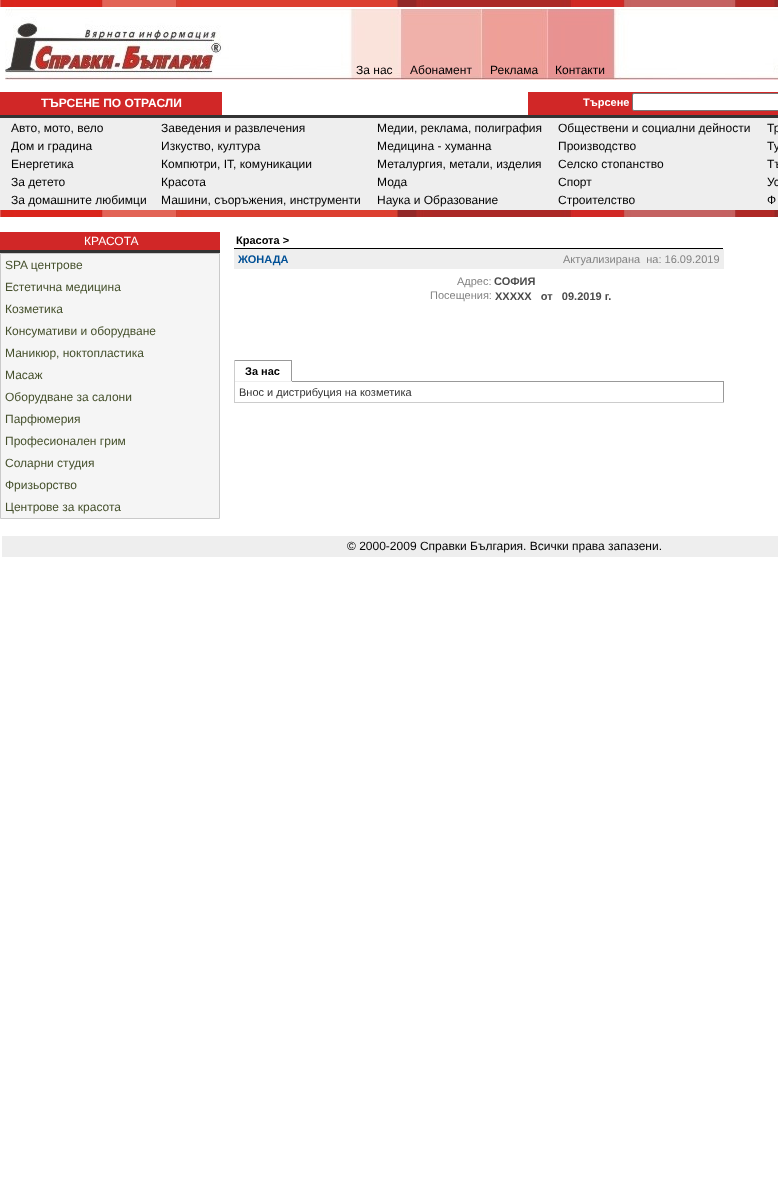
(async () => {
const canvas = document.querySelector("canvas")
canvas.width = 778
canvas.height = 1203
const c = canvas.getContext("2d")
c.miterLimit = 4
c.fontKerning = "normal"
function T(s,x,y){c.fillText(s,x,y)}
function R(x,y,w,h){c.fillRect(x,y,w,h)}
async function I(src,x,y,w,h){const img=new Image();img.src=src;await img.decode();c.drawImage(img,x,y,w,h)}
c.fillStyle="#fff"
R(0,0,778,1203)
await I("1.png",0,0,778,7)
await I("2.png",5,9,773,71)
c.font="12px Liberation Sans"
c.fillStyle="#000"
T("За нас",356,74)
T("Абонамент",410,74)
T("Реклама",490,74)
T("Контакти",555,74)
c.fillStyle="#d12727"
R(0,92,222,23)
c.font="bold 12px Liberation Sans"
c.fillStyle="#fff"
T("ТЪРСЕНЕ ПО ОТРАСЛИ",41,107)
c.fillStyle="#d12727"
R(528,92,250,23)
c.font="bold 11px Liberation Sans"
c.fillStyle="#fff"
T("Tърсене",583,106)
c.beginPath()
c.roundRect(632.5,93.5,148,17,1.5)
c.fill()
c.strokeStyle="#767676"
c.stroke()
c.fillStyle="#eee"
R(0,118,778,92)
c.fillStyle="#333"
R(0,115,778,3)
c.font="12px Liberation Sans"
c.fillStyle="#000"
T("Авто, мото, вело",11,132)
T("Дом и градина",11,150)
T("Енергетика",11,168)
T("За детето",11,186)
T("За домашните любимци",11,204)
T("Заведения и развлечения",161,132)
T("Изкуство, култура",161,150)
T("Компютри, IT, комуникации",161,168)
T("Красота",161,186)
T("Машини, съоръжения, инструменти",161,204)
T("Медии, реклама, полиграфия",377,132)
T("Медицина - хуманна",377,150)
T("Металургия, метали, изделия",377,168)
T("Мода",377,186)
T("Наука и Образование",377,204)
T("Обществени и социални дейности",558,132)
T("Производство",558,150)
T("Селско стопанство",558,168)
T("Спорт",558,186)
T("Строителство",558,204)
T("Тр",767,132)
T("Ту",767,150)
T("Тъ",767,168)
T("Ус",767,186)
T("Ф",767,204)
await I("1.png",0,210,778,7)
c.fillStyle="#d12727"
R(0,232,220,18)
c.fillStyle="#333"
R(0,250,220,3)
c.fillStyle="#fff"
T("КРАСОТА",84,245)
c.fillStyle="#f5f5f5"
c.beginPath()
c.rect(.5,253.5,219,265)
c.fill()
c.strokeStyle="#cacaca"
c.stroke()
c.fillStyle="#46512d"
T("SPA центрове",5,269)
T("Естетична медицина",5,291)
T("Козметика",5,313)
T("Консумативи и оборудване",5,335)
T("Маникюр, ноктопластика",5,357)
T("Масаж",5,379)
T("Оборудване за салони",5,401)
T("Парфюмерия",5,423)
T("Професионален грим",5,445)
T("Соларни студия",5,467)
T("Фризьорство",5,489)
T("Центрове за красота",5,511)
c.fillStyle="#000"
R(234,248,489,1)
c.font="bold 11px Liberation Sans"
T("Красота >",236,244)
c.fillStyle="#eee"
R(234,249,490,20)
c.fillStyle="#005096"
T("ЖОНАДА",238,263)
c.font="11px Liberation Sans"
c.fillStyle="#828282"
T("Актуализирана  на: 16.09.2019",563,263)
T("Адрес:",457,285)
c.font="bold 11px Liberation Sans"
c.fillStyle="#4b4b4b"
T("СОФИЯ",494,285)
c.font="11px Liberation Sans"
c.fillStyle="#828282"
T("Посещения:",430,299)
c.font="bold 11px Liberation Sans"
c.fillStyle="#4b4b4b"
T("XXXXX   от   09.2019 г.",495,300)
c.fillStyle="#999"
R(234,360,58,1)
R(291,360,1,22)
R(292,381,432,1)
R(723,381,1,22)
c.fillStyle="#ccc"
R(234,402,490,1)
R(234,381,1,22)
c.fillStyle="#eee"
R(234,381,58,1)
c.fillStyle="#ccc"
R(234,360,1,22)
c.fillStyle="#000"
T("За нас",245,375)
c.font="11px Liberation Sans"
c.fillStyle="#333"
T("Внос и дистрибуция на козметика",239,396)
c.fillStyle="#eee"
R(2,536,776,21)
c.font="12px Liberation Sans"
c.fillStyle="#000"
T("© 2000-2009 Справки България. Всички права запазени.",347,550)
})()
